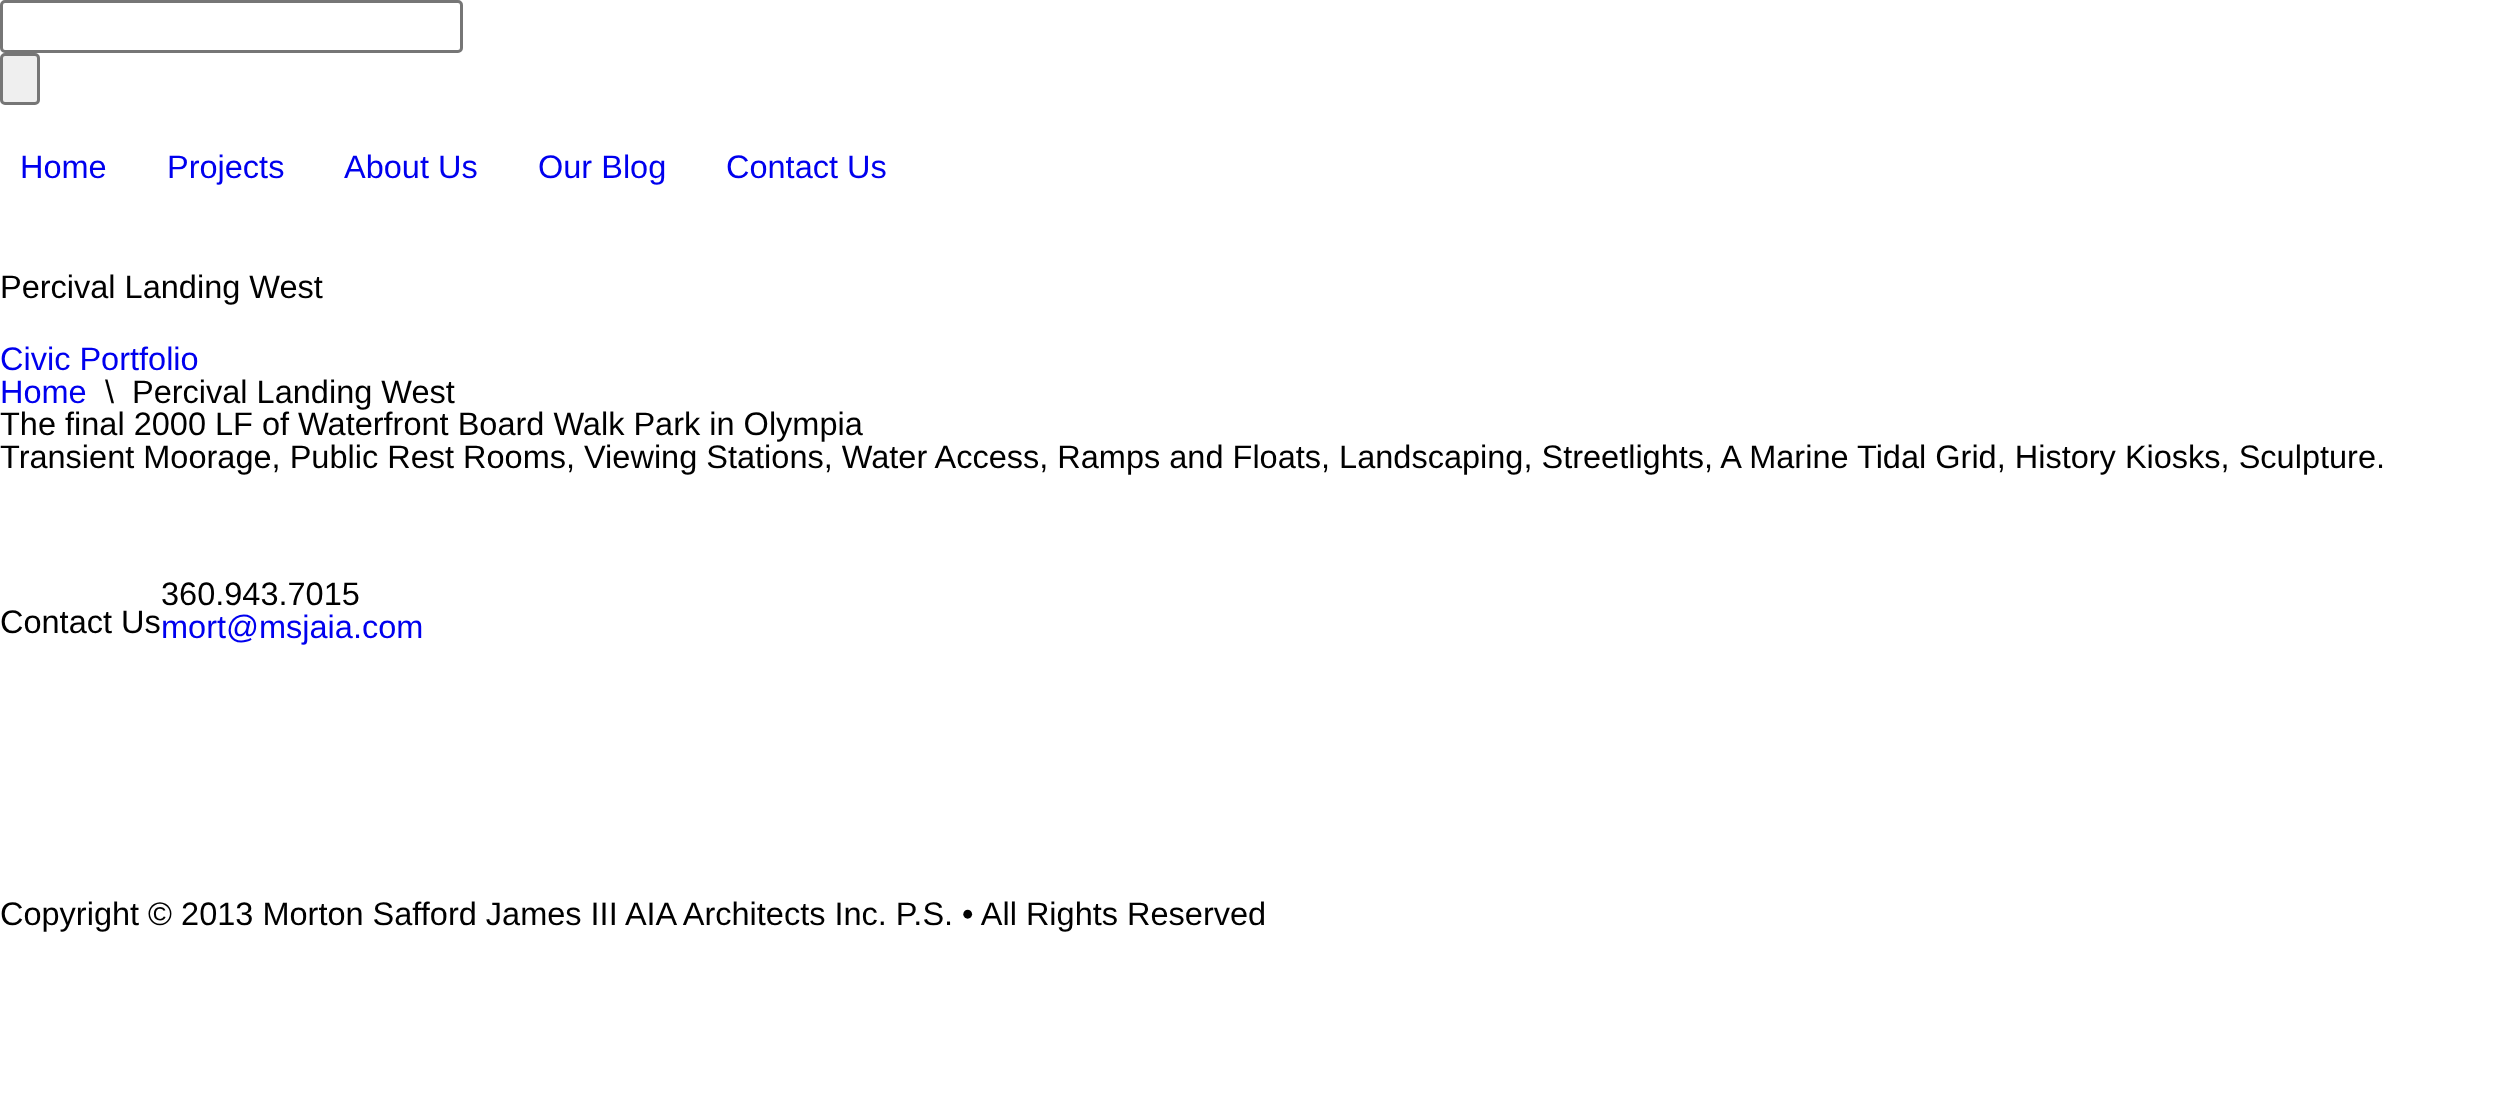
(async () => {
const canvas = document.querySelector("canvas")
canvas.width = 2499
canvas.height = 1114
const c = canvas.getContext("2d")
c.miterLimit = 4
c.fontKerning = "normal"
function T(s,x,y){c.fillText(s,x,y)}
function R(x,y,w,h){c.fillRect(x,y,w,h)}
c.fillStyle="#fff"
R(0,0,2499,1114)
c.beginPath()
c.roundRect(1.5,1.5,460,50,3.5)
c.strokeStyle="#767676"
c.lineWidth=3
c.stroke()
c.fillStyle="#efefef"
c.beginPath()
c.roundRect(1.5,54.5,37,49,3.5)
c.fill()
c.stroke()
c.font="32.5px Liberation Sans"
c.fillStyle="#00e"
T("Home",20,178)
T("Projects",167,178)
T("About Us",344,178)
T("Our Blog",538,178)
T("Contact Us",726,178)
c.fillStyle="#000"
T("Percival Landing West",0,298)
c.fillStyle="#00e"
T("Civic Portfolio",0,370)
T("Home",0,403)
c.fillStyle="#000"
T("\\",105,403)
T("Percival Landing West",132,403)
T("The final 2000 LF of Waterfront Board Walk Park in Olympia",0,435)
T("Transient Moorage, Public Rest Rooms, Viewing Stations, Water Access, Ramps and Floats, Landscaping, Streetlights, A Marine Tidal Grid, History Kiosks, Sculpture.",0,468)
T("Contact Us",0,633)
T("360.943.7015",161,605)
c.fillStyle="#00e"
T("mort@msjaia.com",161,638)
c.fillStyle="#000"
T("Copyright © 2013 Morton Safford James III AIA Architects Inc. P.S. • All Rights Reserved",0,925)
})()
